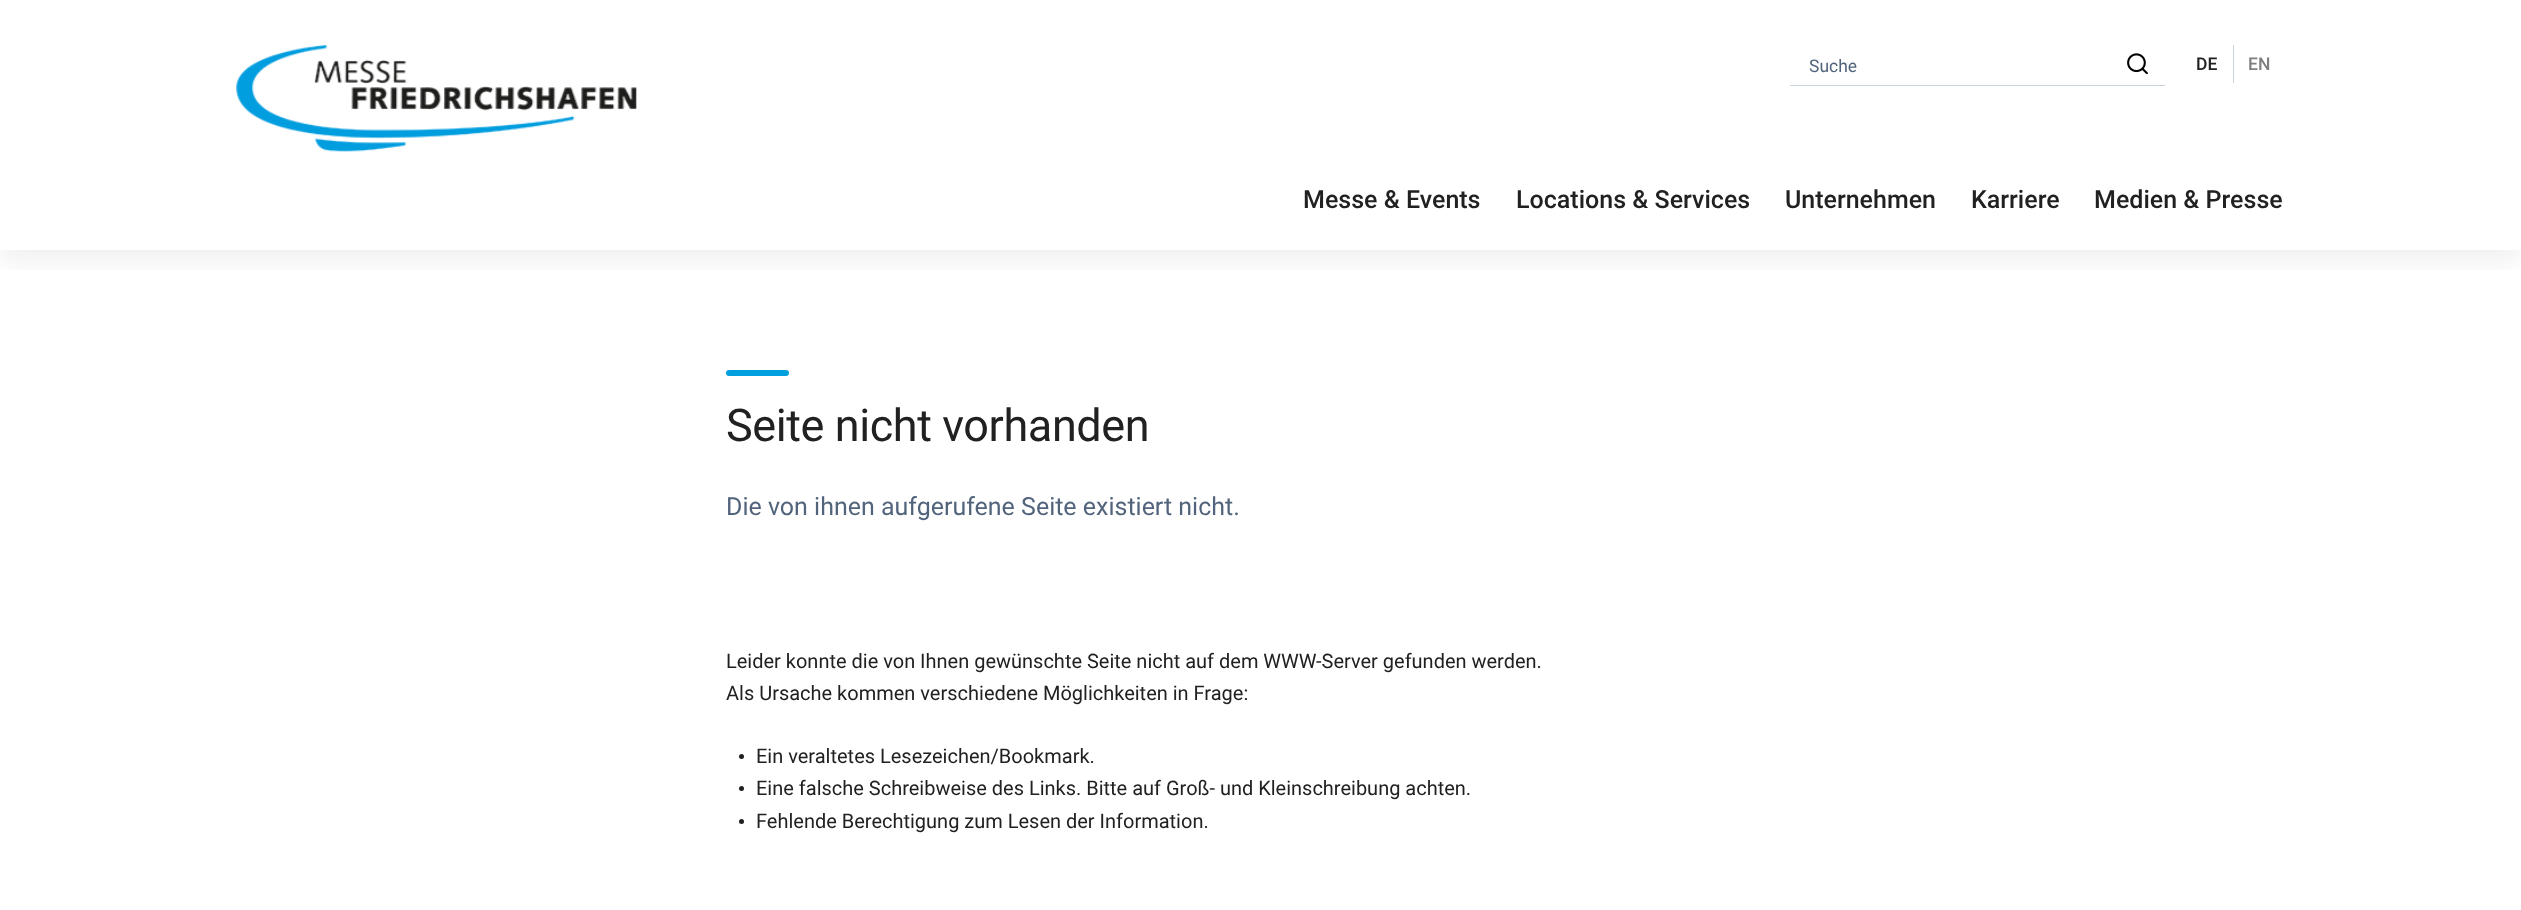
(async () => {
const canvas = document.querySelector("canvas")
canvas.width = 2521
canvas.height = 910
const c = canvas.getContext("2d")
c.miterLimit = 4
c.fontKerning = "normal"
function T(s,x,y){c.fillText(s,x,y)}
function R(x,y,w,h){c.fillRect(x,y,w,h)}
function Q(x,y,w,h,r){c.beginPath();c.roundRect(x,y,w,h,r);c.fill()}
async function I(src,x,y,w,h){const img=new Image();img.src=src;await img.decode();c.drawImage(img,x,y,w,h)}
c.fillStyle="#fff"
R(0,0,2521,910)
c.save()
c.beginPath()
c.rect(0,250,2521,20)
c.clip()
c.fillStyle="#28293d14"
c.filter="blur(15px)"
c.beginPath()
c.rect(0,10,2521,250)
c.fill()
c.filter="none"
c.restore()
await I("1.png",236,45,401,107)
c.fillStyle="#c8d1de"
R(1790,85,375,1)
c.font="17.5px Roboto"
c.fillStyle="#52647c"
T("Suche",1809,72)
await I("2.png",2127,53,21,22)
c.font="500 17.5px Roboto"
c.fillStyle="#212121"
T("DE",2196,70)
c.fillStyle="#c8d1de"
R(2233,45,1,38)
c.fillStyle="#807e7e"
T("EN",2248,70)
c.font="500 25px Roboto"
c.fillStyle="#212121"
T("Messe & Events",1303,208)
T("Locations & Services",1516,208)
T("Unternehmen",1785,208)
T("Karriere",1971,208)
T("Medien & Presse",2094,208)
c.fillStyle="#00a0df"
Q(726,370,63,6,3)
c.letterSpacing="-0.4px"
c.font="45px Roboto"
c.fillStyle="#212121"
T("Seite nicht vorhanden",726,441)
c.letterSpacing="0px"
c.font="25px Roboto"
c.fillStyle="#52647c"
T("Die von ihnen aufgerufene Seite existiert nicht.",726,515)
c.font="20px Roboto"
c.fillStyle="#212121"
T("Leider konnte die von Ihnen gewünschte Seite nicht auf dem WWW-Server gefunden werden.",726,668)
T("Als Ursache kommen verschiedene Möglichkeiten in Frage:",726,700)
c.beginPath()
c.arc(741.5,756.5,2.5,0,7)
c.fill()
T("Ein veraltetes Lesezeichen/Bookmark.",756,763)
c.beginPath()
c.arc(741.5,788.5,2.5,0,7)
c.fill()
T("Eine falsche Schreibweise des Links. Bitte auf Groß- und Kleinschreibung achten.",756,795)
c.beginPath()
c.arc(741.5,821.5,2.5,0,7)
c.fill()
T("Fehlende Berechtigung zum Lesen der Information.",756,828)
})()
